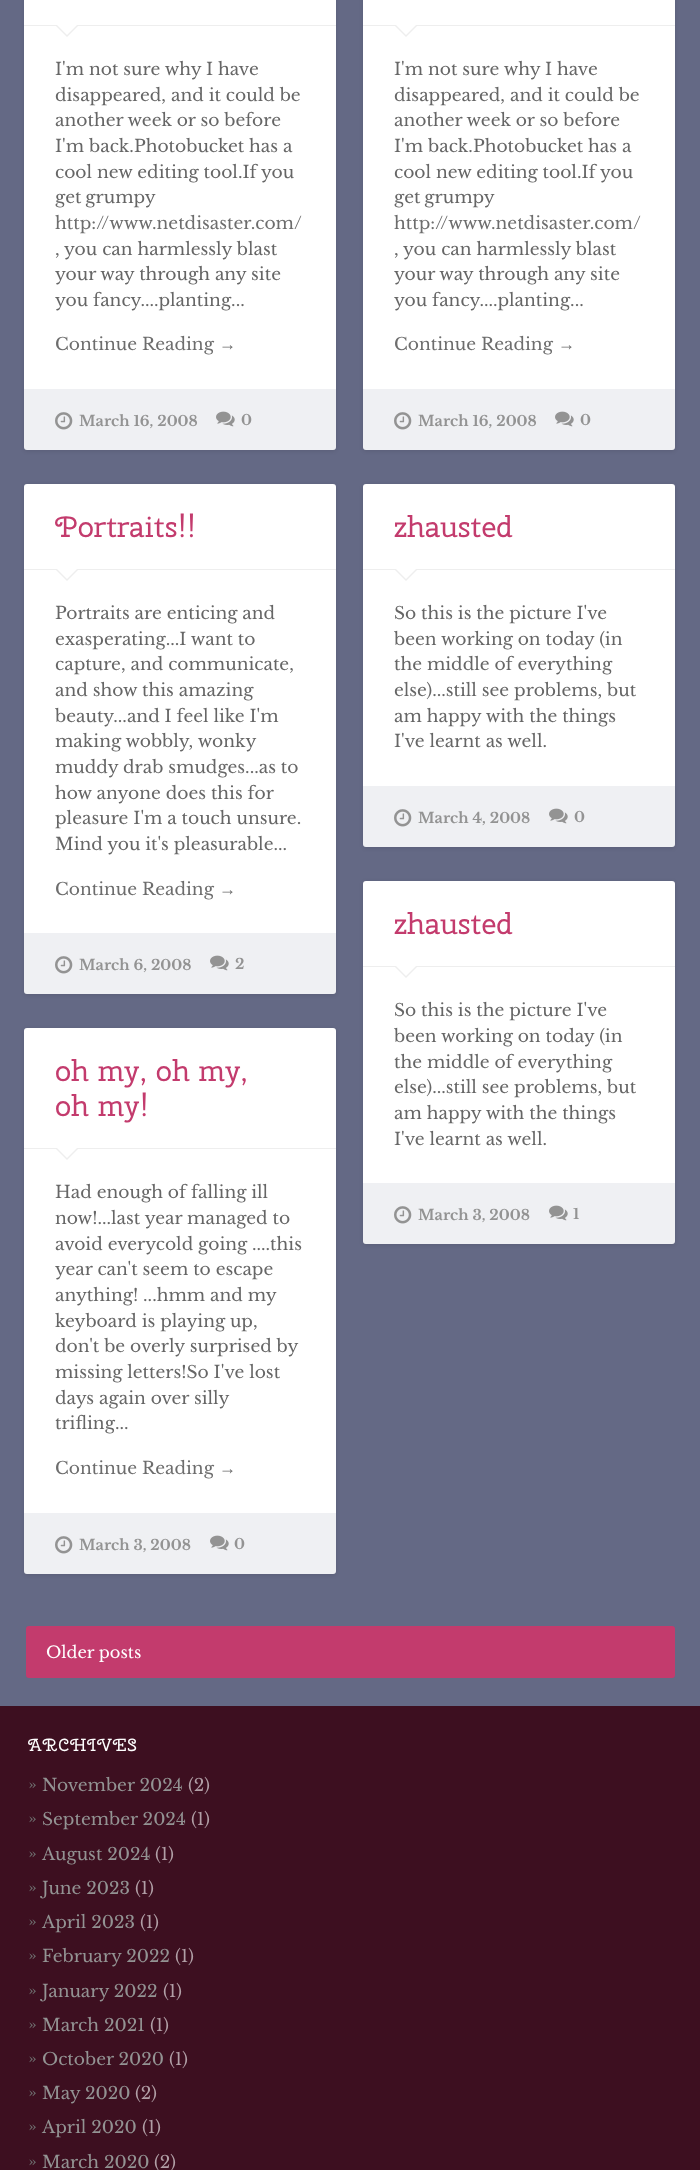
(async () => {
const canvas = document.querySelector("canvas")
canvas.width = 700
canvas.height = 2170
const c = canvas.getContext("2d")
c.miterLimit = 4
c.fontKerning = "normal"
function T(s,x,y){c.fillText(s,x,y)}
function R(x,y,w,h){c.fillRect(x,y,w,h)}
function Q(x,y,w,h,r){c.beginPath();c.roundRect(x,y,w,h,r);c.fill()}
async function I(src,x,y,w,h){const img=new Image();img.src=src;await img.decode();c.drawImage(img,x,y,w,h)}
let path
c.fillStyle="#646985"
R(0,0,700,2170)
c.fillStyle="#0000001a"
c.filter="blur(2px)"
c.beginPath()
c.roundRect(24,-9,312,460,3)
c.fill()
c.filter="none"
c.fillStyle="#fff"
Q(24,-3,312,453,3)
c.fillStyle="#eee"
R(24,25,312,1)
path = new Path2D("M55 25h24l-12 12z")
c.fill(path)
c.fillStyle="#fff"
path = new Path2D("M56 24h22l-11 11z")
c.fill(path)
c.font="17.1px Libre Baskerville"
c.fillStyle="#666"
T("I'm not sure why I have",55,75)
T("disappeared, and it could be",55,101)
T("another week or so before",55,126)
T("I'm back.Photobucket has a",55,152)
T("cool new editing tool.If you",55,178)
c.wordSpacing="-1px"
T("get grumpy",55,203)
c.wordSpacing="0px"
c.fillStyle="#6d6d6d"
T("http://www.netdisaster.com/",55,229)
c.fillStyle="#666"
T(", you can harmlessly blast",55,255)
T("your way through any site",55,280)
T("you fancy....planting...",55,306)
c.fillStyle="#6d6d6d"
T("Continue Reading",55,350)
c.font="17.1px Liberation Serif"
T("→",219,350)
c.fillStyle="#6469851a"
c.beginPath()
c.roundRect(24,389,312,61,[0,0,3,3])
c.fill()
await I("1.png",55,412,18,18)
c.font="bold 14.5px Libre Baskerville"
c.fillStyle="#939393"
T("March 16, 2008",79,426)
await I("2.png",216,411,19,16)
T("0",241,425)
c.fillStyle="#0000001a"
c.filter="blur(2px)"
c.beginPath()
c.roundRect(363,-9,312,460,3)
c.fill()
c.filter="none"
c.fillStyle="#fff"
Q(363,-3,312,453,3)
c.fillStyle="#eee"
R(363,25,312,1)
path = new Path2D("M394 25h24l-12 12z")
c.fill(path)
c.fillStyle="#fff"
path = new Path2D("M395 24h22l-11 11z")
c.fill(path)
c.font="17.1px Libre Baskerville"
c.fillStyle="#666"
T("I'm not sure why I have",394,75)
T("disappeared, and it could be",394,101)
T("another week or so before",394,126)
T("I'm back.Photobucket has a",394,152)
T("cool new editing tool.If you",394,178)
c.wordSpacing="-1px"
T("get grumpy",394,203)
c.wordSpacing="0px"
c.fillStyle="#6d6d6d"
T("http://www.netdisaster.com/",394,229)
c.fillStyle="#666"
T(", you can harmlessly blast",394,255)
T("your way through any site",394,280)
T("you fancy....planting...",394,306)
c.fillStyle="#6d6d6d"
T("Continue Reading",394,350)
c.font="17.1px Liberation Serif"
T("→",558,350)
c.fillStyle="#6469851a"
c.beginPath()
c.roundRect(363,389,312,61,[0,0,3,3])
c.fill()
await I("1.png",394,412,18,18)
c.font="bold 14.5px Libre Baskerville"
c.fillStyle="#939393"
T("March 16, 2008",418,426)
await I("2.png",555,411,19,16)
T("0",580,425)
c.fillStyle="#0000001a"
c.filter="blur(2px)"
c.beginPath()
c.roundRect(24,485,312,510,3)
c.fill()
c.filter="none"
c.fillStyle="#fff"
Q(24,484,312,510,3)
c.fillStyle="#eee"
R(24,569,312,1)
c.font="29.25px Cherry Swash"
c.fillStyle="#c33b6d"
T("Portraits!!",55,537)
c.fillStyle="#eee"
path = new Path2D("M55 569h24l-12 12z")
c.fill(path)
c.fillStyle="#fff"
path = new Path2D("M56 568h22l-11 11z")
c.fill(path)
c.font="17.1px Libre Baskerville"
c.fillStyle="#666"
T("Portraits are enticing and",55,619)
T("exasperating...I want to",55,645)
T("capture, and communicate,",55,670)
T("and show this amazing",55,696)
T("beauty...and I feel like I'm",55,722)
T("making wobbly, wonky",55,747)
T("muddy drab smudges...as to",55,773)
T("how anyone does this for",55,799)
T("pleasure I'm a touch unsure.",55,824)
T("Mind you it's pleasurable...",55,850)
c.fillStyle="#6d6d6d"
T("Continue Reading",55,895)
c.font="17.1px Liberation Serif"
T("→",219,895)
c.fillStyle="#6469851a"
c.beginPath()
c.roundRect(24,933,312,61,[0,0,3,3])
c.fill()
await I("1.png",55,956,18,18)
c.font="bold 14.5px Libre Baskerville"
c.fillStyle="#939393"
T("March 6, 2008",79,970)
await I("2.png",210,955,19,16)
T("2",235,969)
c.fillStyle="#0000001a"
c.filter="blur(2px)"
c.beginPath()
c.roundRect(363,485,312,363,3)
c.fill()
c.filter="none"
c.fillStyle="#fff"
Q(363,484,312,363,3)
c.fillStyle="#eee"
R(363,569,312,1)
c.font="29.25px Cherry Swash"
c.fillStyle="#c33b6d"
T("zhausted",394,537)
c.fillStyle="#eee"
path = new Path2D("M394 569h24l-12 12z")
c.fill(path)
c.fillStyle="#fff"
path = new Path2D("M395 568h22l-11 11z")
c.fill(path)
c.font="17.1px Libre Baskerville"
c.fillStyle="#666"
T("So this is the picture I've",394,619)
T("been working on today (in",394,645)
T("the middle of everything",394,670)
T("else)...still see problems, but",394,696)
T("am happy with the things",394,722)
T("I've learnt as well.",394,747)
c.fillStyle="#6469851a"
c.beginPath()
c.roundRect(363,786,312,61,[0,0,3,3])
c.fill()
await I("1.png",394,809,18,18)
c.font="bold 14.5px Libre Baskerville"
c.fillStyle="#939393"
T("March 4, 2008",418,823)
await I("2.png",549,808,19,16)
T("0",574,822)
c.fillStyle="#0000001a"
c.filter="blur(2px)"
c.beginPath()
c.roundRect(24,1029,312,546,3)
c.fill()
c.filter="none"
c.fillStyle="#fff"
Q(24,1028,312,546,3)
c.fillStyle="#eee"
R(24,1148,312,1)
c.font="29.25px Cherry Swash"
c.fillStyle="#c33b6d"
T("oh my, oh my,",55,1081)
T("oh my!",55,1116)
c.fillStyle="#eee"
path = new Path2D("M55 1148h24l-12 12z")
c.fill(path)
c.fillStyle="#fff"
path = new Path2D("M56 1147h22l-11 11z")
c.fill(path)
c.font="17.1px Libre Baskerville"
c.fillStyle="#666"
T("Had enough of falling ill",55,1198)
T("now!...last year managed to",55,1224)
T("avoid everycold going ....this",55,1250)
T("year can't seem to escape",55,1275)
T("anything! ...hmm and my",55,1301)
T("keyboard is playing up,",55,1327)
T("don't be overly surprised by",55,1352)
T("missing letters!So I've lost",55,1378)
T("days again over silly",55,1404)
T("trifling...",55,1429)
c.fillStyle="#6d6d6d"
T("Continue Reading",55,1474)
c.font="17.1px Liberation Serif"
T("→",219,1474)
c.fillStyle="#6469851a"
c.beginPath()
c.roundRect(24,1513,312,61,[0,0,3,3])
c.fill()
await I("1.png",55,1536,18,18)
c.font="bold 14.5px Libre Baskerville"
c.fillStyle="#939393"
T("March 3, 2008",79,1550)
await I("2.png",210,1535,19,16)
T("0",234,1549)
c.fillStyle="#0000001a"
c.filter="blur(2px)"
c.beginPath()
c.roundRect(363,882,312,363,3)
c.fill()
c.filter="none"
c.fillStyle="#fff"
Q(363,881,312,363,3)
c.fillStyle="#eee"
R(363,966,312,1)
c.font="29.25px Cherry Swash"
c.fillStyle="#c33b6d"
T("zhausted",394,934)
c.fillStyle="#eee"
path = new Path2D("M394 966h24l-12 12z")
c.fill(path)
c.fillStyle="#fff"
path = new Path2D("M395 965h22l-11 11z")
c.fill(path)
c.font="17.1px Libre Baskerville"
c.fillStyle="#666"
T("So this is the picture I've",394,1016)
T("been working on today (in",394,1042)
T("the middle of everything",394,1068)
T("else)...still see problems, but",394,1093)
T("am happy with the things",394,1119)
T("I've learnt as well.",394,1145)
c.fillStyle="#6469851a"
c.beginPath()
c.roundRect(363,1183,312,61,[0,0,3,3])
c.fill()
await I("1.png",394,1206,18,18)
c.font="bold 14.5px Libre Baskerville"
c.fillStyle="#939393"
T("March 3, 2008",418,1220)
await I("2.png",549,1205,19,16)
T("1",573,1219)
c.fillStyle="#c33b6d"
Q(26,1626,649,52,3)
c.font="16.25px Libre Baskerville"
c.fillStyle="#fff"
T("Older posts",46,1658)
c.fillStyle="#3d0f20"
R(0,1706,700,464)
c.letterSpacing="1px"
c.font="17.5px Cherry Swash"
c.fillStyle="#fff"
T("ARCHIVES",28,1751)
c.letterSpacing="0px"
c.font="18px Libre Baskerville"
c.fillStyle="#6d6d6d"
T("»",28,1790)
c.font="17.1px Libre Baskerville"
c.fillStyle="#939393"
T("November 2024",42,1791)
c.fillStyle="#b19fa6"
T("(2)",188,1791)
c.font="18px Libre Baskerville"
c.fillStyle="#6d6d6d"
T("»",28,1824)
c.font="17.1px Libre Baskerville"
c.fillStyle="#939393"
T("September 2024",42,1825)
c.fillStyle="#b19fa6"
T("(1)",191,1825)
c.font="18px Libre Baskerville"
c.fillStyle="#6d6d6d"
T("»",28,1859)
c.font="17.1px Libre Baskerville"
c.fillStyle="#939393"
T("August 2024",42,1860)
c.fillStyle="#b19fa6"
T("(1)",155,1860)
c.font="18px Libre Baskerville"
c.fillStyle="#6d6d6d"
T("»",28,1893)
c.font="17.1px Libre Baskerville"
c.fillStyle="#939393"
T("June 2023",42,1894)
c.fillStyle="#b19fa6"
T("(1)",135,1894)
c.font="18px Libre Baskerville"
c.fillStyle="#6d6d6d"
T("»",28,1927)
c.font="17.1px Libre Baskerville"
c.fillStyle="#939393"
T("April 2023",42,1928)
c.fillStyle="#b19fa6"
T("(1)",140,1928)
c.font="18px Libre Baskerville"
c.fillStyle="#6d6d6d"
T("»",28,1961)
c.font="17.1px Libre Baskerville"
c.fillStyle="#939393"
T("February 2022",42,1962)
c.fillStyle="#b19fa6"
T("(1)",175,1962)
c.font="18px Libre Baskerville"
c.fillStyle="#6d6d6d"
T("»",28,1996)
c.font="17.1px Libre Baskerville"
c.fillStyle="#939393"
T("January 2022",42,1997)
c.fillStyle="#b19fa6"
T("(1)",163,1997)
c.font="18px Libre Baskerville"
c.fillStyle="#6d6d6d"
T("»",28,2030)
c.font="17.1px Libre Baskerville"
c.fillStyle="#939393"
T("March 2021",42,2031)
c.fillStyle="#b19fa6"
T("(1)",150,2031)
c.font="18px Libre Baskerville"
c.fillStyle="#6d6d6d"
T("»",28,2064)
c.font="17.1px Libre Baskerville"
c.fillStyle="#939393"
T("October 2020",42,2065)
c.fillStyle="#b19fa6"
T("(1)",169,2065)
c.font="18px Libre Baskerville"
c.fillStyle="#6d6d6d"
T("»",28,2098)
c.font="17.1px Libre Baskerville"
c.fillStyle="#939393"
T("May 2020",42,2099)
c.fillStyle="#b19fa6"
T("(2)",135,2099)
c.font="18px Libre Baskerville"
c.fillStyle="#6d6d6d"
T("»",28,2132)
c.font="17.1px Libre Baskerville"
c.fillStyle="#939393"
T("April 2020",42,2133)
c.fillStyle="#b19fa6"
T("(1)",142,2133)
c.font="18px Libre Baskerville"
c.fillStyle="#6d6d6d"
T("»",28,2167)
c.font="17.1px Libre Baskerville"
c.fillStyle="#939393"
T("March 2020",42,2168)
c.fillStyle="#b19fa6"
T("(2)",154,2168)
})()
